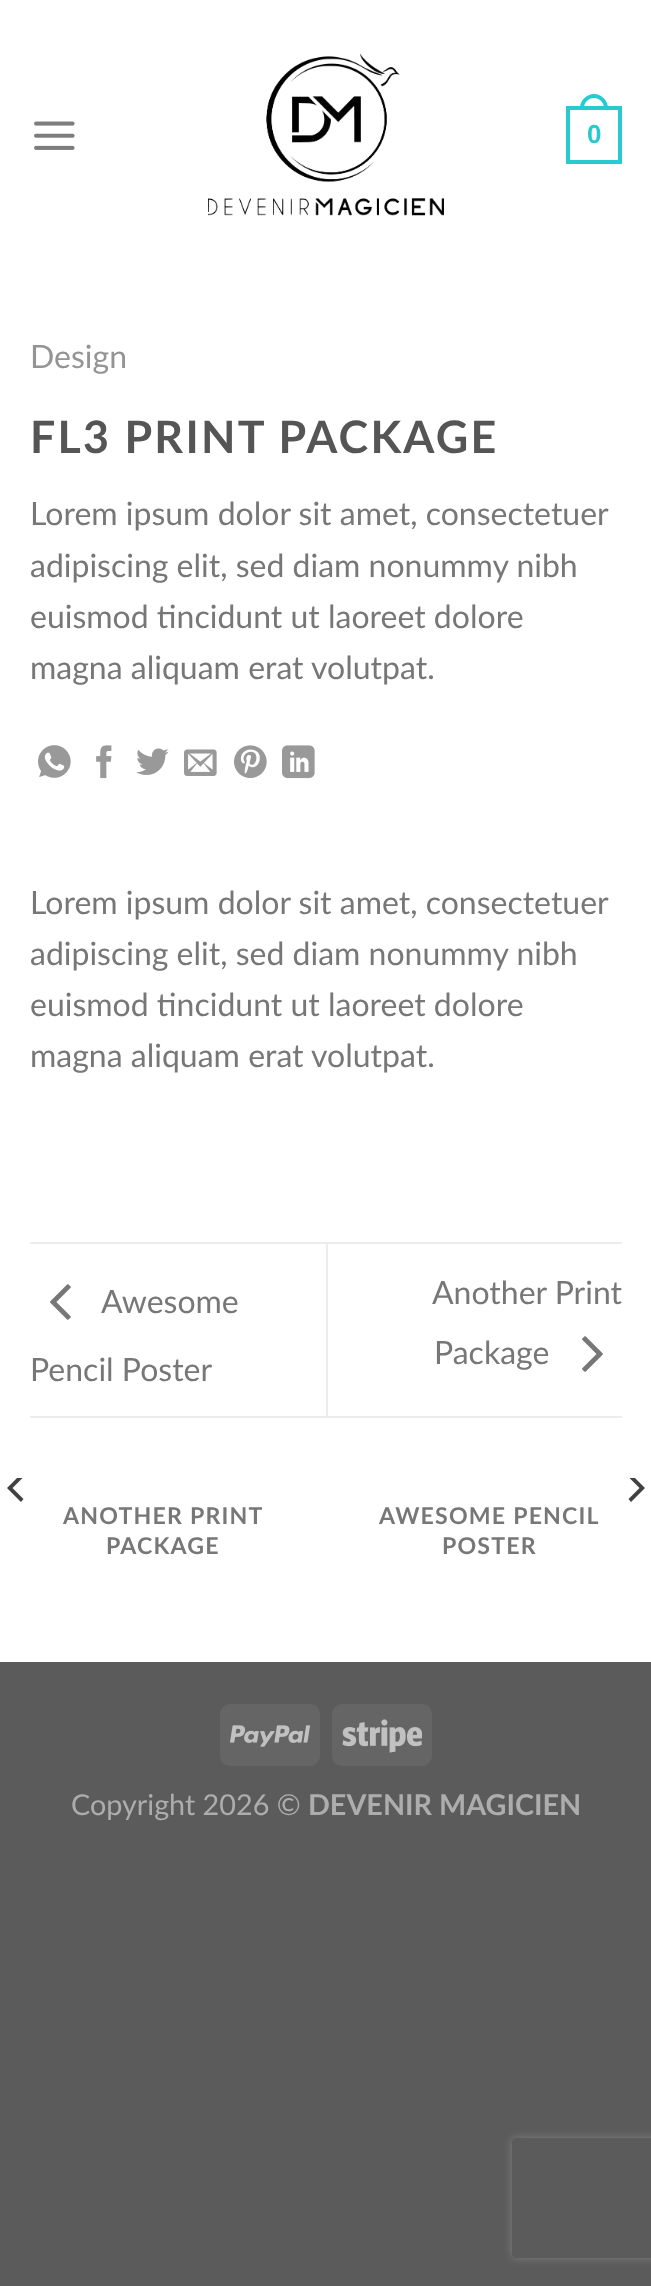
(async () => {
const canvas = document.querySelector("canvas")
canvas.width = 651
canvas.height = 2286
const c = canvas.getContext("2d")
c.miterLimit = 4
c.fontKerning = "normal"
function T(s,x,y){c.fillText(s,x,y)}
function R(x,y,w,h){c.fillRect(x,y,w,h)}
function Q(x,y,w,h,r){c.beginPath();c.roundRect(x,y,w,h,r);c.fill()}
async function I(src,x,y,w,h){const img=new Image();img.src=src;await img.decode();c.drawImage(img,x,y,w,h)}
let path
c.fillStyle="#5b5b5b"
R(0,0,651,2286)
c.fillStyle="#fff"
R(0,0,651,1662)
await I("1.png",34,121,41,29)
await I("2.png",208,54,236,162)
c.strokeStyle="#27cacd"
c.lineWidth=4
c.strokeRect(568,108,52,54)
c.fillStyle="#27cacd"
path = new Path2D("M594 94c7.5 0 14 6.5 14 14v2h-28v-2c0-7.5 6.5-14 14-14zm0 4c5.5 0 10 4.5 10 10v2h-20v-2c0-5.5 4.5-10 10-10z")
c.fill(path,"evenodd")
c.font="bold 26px Liberation Sans"
T("0",587,143)
c.font="32px Lato"
c.fillStyle="#949494"
T("Design",30,368)
c.letterSpacing="2.25px"
c.font="bold 44.75px Lato"
c.fillStyle="#555"
T("FL3 PRINT PACKAGE",30,453)
c.letterSpacing="0px"
c.font="32px Lato"
c.fillStyle="#777"
T("Lorem ipsum dolor sit amet, consectetuer",30,525)
T("adipiscing elit, sed diam nonummy nibh",30,577)
T("euismod tincidunt ut laoreet dolore",30,628)
T("magna aliquam erat volutpat.",30,679)
await I("3.png",38,745,33,33)
await I("4.png",96,745,16,34)
await I("5.png",136,748,33,27)
await I("6.png",184,749,33,27)
await I("7.png",234,745,33,33)
await I("8.png",282,745,33,34)
T("Lorem ipsum dolor sit amet, consectetuer",30,914)
T("adipiscing elit, sed diam nonummy nibh",30,965)
T("euismod tincidunt ut laoreet dolore",30,1016)
T("magna aliquam erat volutpat.",30,1067)
c.fillStyle="#ececec"
R(30,1242,592,2)
R(30,1416,592,2)
await I("9.png",50,1284,21,36)
c.fillStyle="#777"
T("Awesome",101,1313)
T("Pencil Poster",30,1381)
c.fillStyle="#ececec"
R(326,1244,2,172)
c.fillStyle="#777"
T("Another Print",432,1304)
T("Package",434,1364)
await I("10.png",582,1336,21,36)
c.save()
c.beginPath()
c.rect(0,1478,38,30)
c.clip()
c.fillStyle="#414141"
path = new Path2D("M7 1488l14 14l2.5-3l-11-11l11-11l-2.5-3z")
c.fill(path)
c.restore()
c.save()
c.beginPath()
c.rect(614,1478,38,30)
c.clip()
c.fillStyle="#414141"
path = new Path2D("M645 1488l-14-14l-2.5 3l11 11l-11 11l2.5 3z")
c.fill(path)
c.restore()
c.letterSpacing="1.2px"
c.font="bold 23.1px Lato"
T("ANOTHER PRINT",63,1524)
T("PACKAGE",106,1554)
T("AWESOME PENCIL",379,1524)
T("POSTER",442,1554)
c.fillStyle="#656565"
Q(220,1704,100,62,10)
await I("11.png",230,1725,80,22)
Q(332,1704,100,62,10)
await I("12.png",342,1719,80,34)
c.letterSpacing="0px"
c.font="28.75px Lato"
c.fillStyle="#adadad"
T("Copyright 2026 ©",71,1815)
c.font="bold 28.75px Lato"
T("DEVENIR MAGICIEN",308,1815)
c.save()
path = new Path2D("M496 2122h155v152h-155zm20 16h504c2 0 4 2 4 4v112c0 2-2 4-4 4h-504c-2 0-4-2-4-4v-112c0-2 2-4 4-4z")
c.clip(path,"evenodd")
c.fillStyle="#808080"
c.filter="blur(5px)"
c.beginPath()
c.roundRect(512,2138,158,120,4)
c.fill()
c.filter="none"
c.restore()
})()
